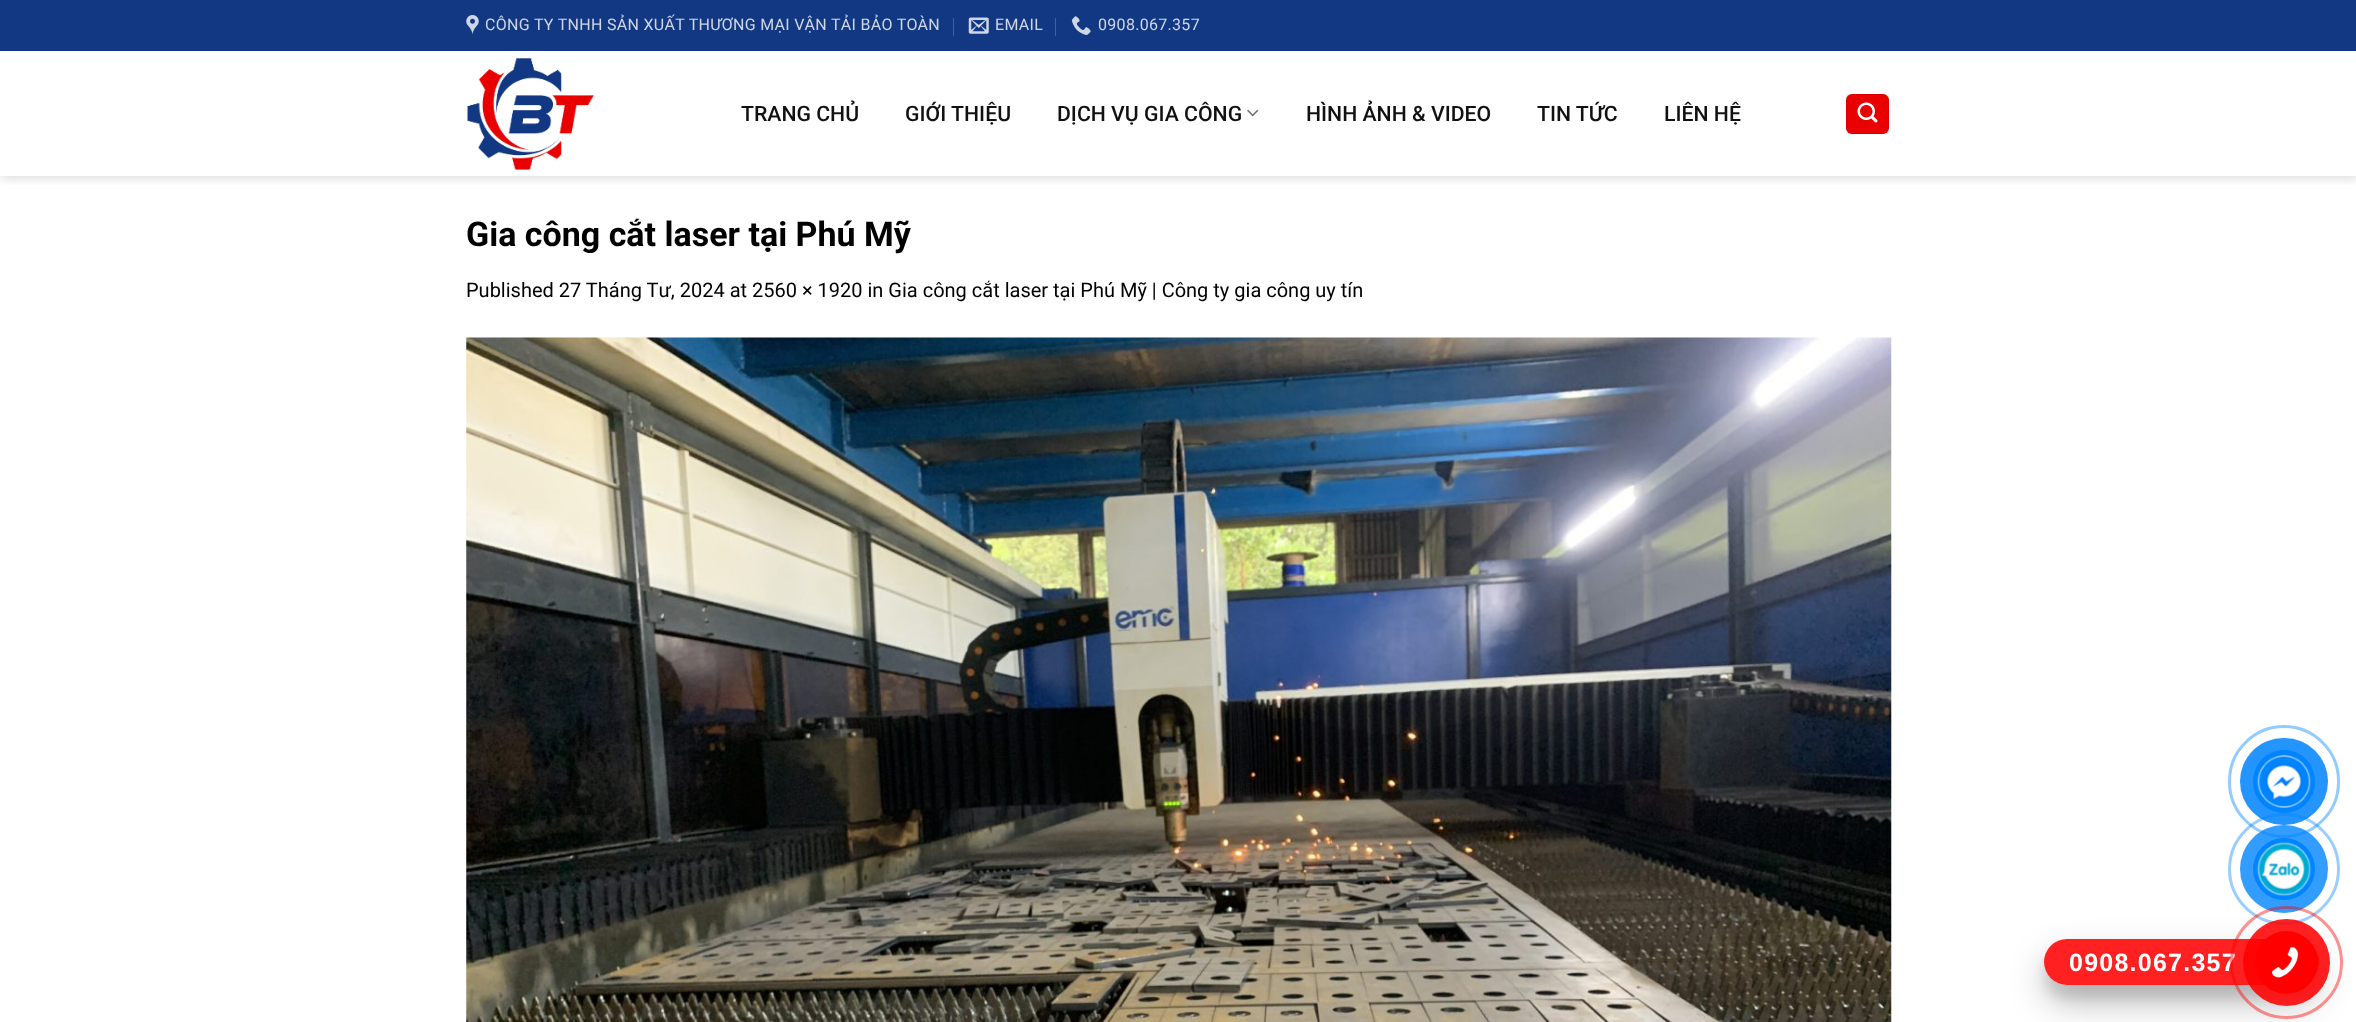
(async () => {
const canvas = document.querySelector("canvas")
canvas.width = 2356
canvas.height = 1022
const c = canvas.getContext("2d")
c.miterLimit = 4
c.fontKerning = "normal"
function T(s,x,y){c.fillText(s,x,y)}
function R(x,y,w,h){c.fillRect(x,y,w,h)}
function Q(x,y,w,h,r){c.beginPath();c.roundRect(x,y,w,h,r);c.fill()}
async function I(src,x,y,w,h){const img=new Image();img.src=src;await img.decode();c.drawImage(img,x,y,w,h)}
let path
c.fillStyle="#fff"
R(0,0,2356,1022)
c.save()
c.beginPath()
c.rect(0,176,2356,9)
c.clip()
c.fillStyle="#00000026"
c.filter="blur(6px)"
c.beginPath()
c.rect(1,1,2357,177)
c.fill()
c.filter="none"
c.restore()
c.fillStyle="#123883"
R(0,0,2356,51)
await I("1.png",466,15,13,20)
c.letterSpacing="0.3px"
c.font="16px Roboto"
c.fillStyle="#d0d7e6"
T("CÔNG TY TNHH SẢN XUẤT THƯƠNG MẠI VẬN TẢI BẢO TOÀN",485,30)
c.fillStyle="#41609c"
R(953,18,1,18)
await I("2.png",968,17,21,17)
c.fillStyle="#d0d7e6"
T("EMAIL",995,30)
c.fillStyle="#41609c"
R(1055,18,1,18)
await I("3.png",1071,16,20,19)
c.fillStyle="#d0d7e6"
T("0908.067.357",1098,30)
await I("4.png",467,58,127,112)
c.letterSpacing="0px"
c.font="500 21.25px Roboto"
c.fillStyle="#111"
T("TRANG CHỦ",741,121)
T("GIỚI THIỆU",905,121)
T("DỊCH VỤ GIA CÔNG",1057,121)
await I("5.png",1247,109,12,8)
T("HÌNH ẢNH & VIDEO",1306,121)
T("TIN TỨC",1537,121)
T("LIÊN HỆ",1664,121)
c.fillStyle="#e90000"
Q(1846,94,43,40,6)
c.strokeStyle="#0000000d"
c.strokeRect(1846.5,94.5,42,39)
await I("6.png",1857,102,21,21)
c.font="bold 34px Roboto"
c.fillStyle="#000"
T("Gia công cắt laser tại Phú Mỹ",466,246)
c.font="20px Roboto"
T("Published 27 Tháng Tư, 2024 at 2560 × 1920 in Gia công cắt laser tại Phú Mỹ | Công ty gia công uy tín",466,297)
await I("7.png",466,337,1426,685)
c.beginPath()
c.roundRect(2229.5,726.5,109,110,54.5)
c.strokeStyle="#92cbff"
c.lineWidth=3
c.stroke()
c.fillStyle="#2495ff"
Q(2240,738,88,87,43.5)
c.fillStyle="#0084ff"
Q(2253,750,62,63,31)
await I("8.png",2257,755,54,53)
c.save()
path = new Path2D("M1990 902h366v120h-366zm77 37h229c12.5 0 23 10.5 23 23c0 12.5-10.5 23-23 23h-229c-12.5 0-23-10.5-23-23c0-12.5 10.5-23 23-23z")
c.clip(path,"evenodd")
c.fillStyle="#00000040"
c.filter="blur(17.5px)"
c.beginPath()
c.roundRect(2044,956,275,47,23.5)
c.fill()
c.filter="none"
c.restore()
c.beginPath()
c.arc(2284,869,54.5,0,7)
c.strokeStyle="#0084ff66"
c.stroke()
c.fillStyle="#0084ffcc"
c.beginPath()
c.arc(2284,869,44,0,7)
c.fill()
c.fillStyle="#0084ff"
c.beginPath()
c.arc(2284,869,31,0,7)
c.fill()
await I("9.png",2257,842,54,54)
c.save()
path = new Path2D("M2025 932h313v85h-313zm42 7h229c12.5 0 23 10.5 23 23c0 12.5-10.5 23-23 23h-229c-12.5 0-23-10.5-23-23c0-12.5 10.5-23 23-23z")
c.clip(path,"evenodd")
c.fillStyle="#0000001a"
c.filter="blur(6px)"
c.beginPath()
c.roundRect(2044,951,275,47,23.5)
c.fill()
c.filter="none"
c.restore()
c.fillStyle="#ff0000de"
Q(2044,939,275,46,23)
c.letterSpacing="1.25px"
c.font="bold 25px Liberation Sans"
c.fillStyle="#fff"
T("0908.067.357",2069,971)
c.beginPath()
c.arc(2286.5,962.5,55,0,7)
c.strokeStyle="#ff00006e"
c.stroke()
c.fillStyle="#ff0000de"
c.beginPath()
c.arc(2286.5,962.5,43.5,0,7)
c.fill()
c.fillStyle="#f00"
c.beginPath()
c.arc(2286.5,962.5,31.5,0,7)
c.fill()
await I("10.png",2272,946,27,32)
})()
